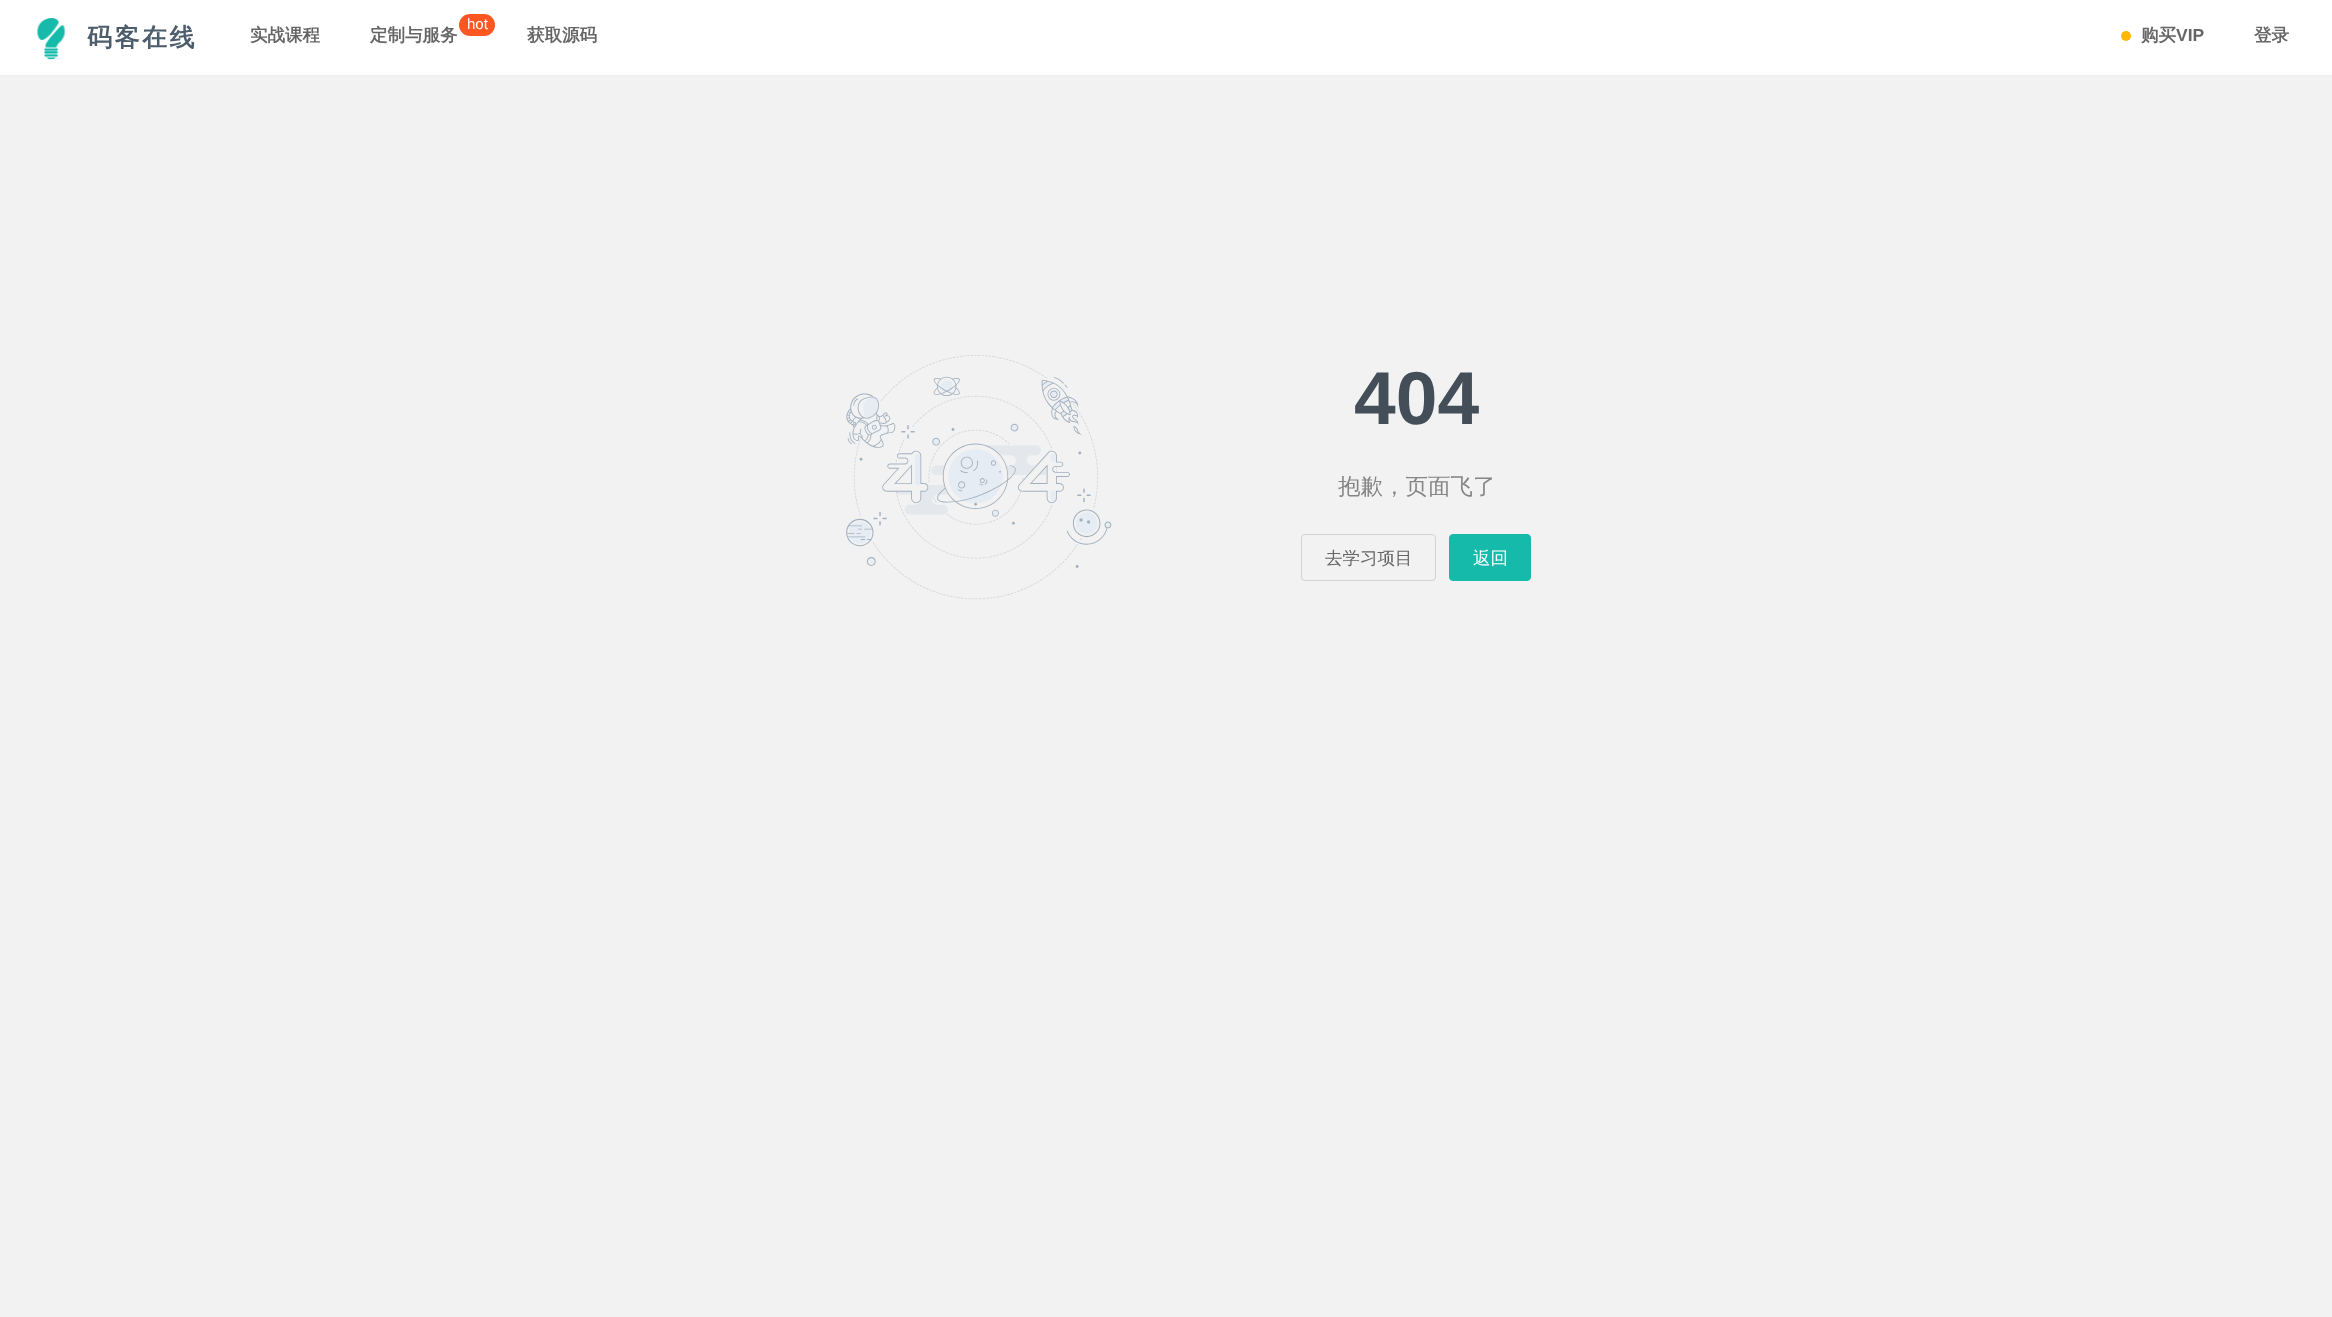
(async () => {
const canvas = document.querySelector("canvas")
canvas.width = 2332
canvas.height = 1317
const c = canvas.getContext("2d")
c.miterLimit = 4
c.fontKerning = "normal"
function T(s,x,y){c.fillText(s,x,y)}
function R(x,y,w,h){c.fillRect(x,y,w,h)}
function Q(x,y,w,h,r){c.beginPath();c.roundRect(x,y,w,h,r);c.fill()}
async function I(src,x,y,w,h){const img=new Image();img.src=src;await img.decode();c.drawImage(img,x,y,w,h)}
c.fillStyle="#f2f2f2"
R(0,0,2332,1317)
c.fillStyle="#fff"
R(0,0,2332,75)
c.fillStyle="#eee"
R(0,75,2332,1)
await I("1.png",37,18,29,42)
c.letterSpacing="2.5px"
c.font="bold 25px WenQuanYi Zen Hei"
c.fillStyle="#4d5d6c"
T("码客在线",87,46)
c.letterSpacing="0px"
c.font="bold 17.5px WenQuanYi Zen Hei"
c.fillStyle="#666"
T("实战课程",250,41)
c.fillStyle="#ff5722"
Q(459,14,36,22,11)
c.font="15px Liberation Sans"
c.fillStyle="#fff"
T("hot",467,29)
c.font="bold 17.5px WenQuanYi Zen Hei"
c.fillStyle="#666"
T("定制与服务",370,41)
T("获取源码",527,41)
c.fillStyle="#ffb800"
c.beginPath()
c.arc(2126,36,5,0,7)
c.fill()
c.fillStyle="#666"
T("购买",2141,41)
c.font="bold 17.5px Liberation Sans"
T("VIP",2176,41)
c.font="bold 17.5px WenQuanYi Zen Hei"
T("登录",2254,41)
await I("2.png",846,355,266,245)
c.font="bold 75px Liberation Sans"
c.fillStyle="#434e59"
T("404",1354,424)
c.font="500 22.5px WenQuanYi Zen Hei"
c.fillStyle="#858585"
T("抱歉，页面飞了",1338,494)
c.beginPath()
c.roundRect(1301.5,534.5,134,46,3.5)
c.strokeStyle="#d2d2d2"
c.stroke()
c.font="500 17.5px WenQuanYi Zen Hei"
c.fillStyle="#666"
T("去学习项目",1325,564)
c.fillStyle="#16baaa"
c.beginPath()
c.roundRect(1449.5,534.5,81,46,3.5)
c.fill()
c.strokeStyle="#16baaa"
c.stroke()
c.fillStyle="#fff"
T("返回",1473,564)
})()
